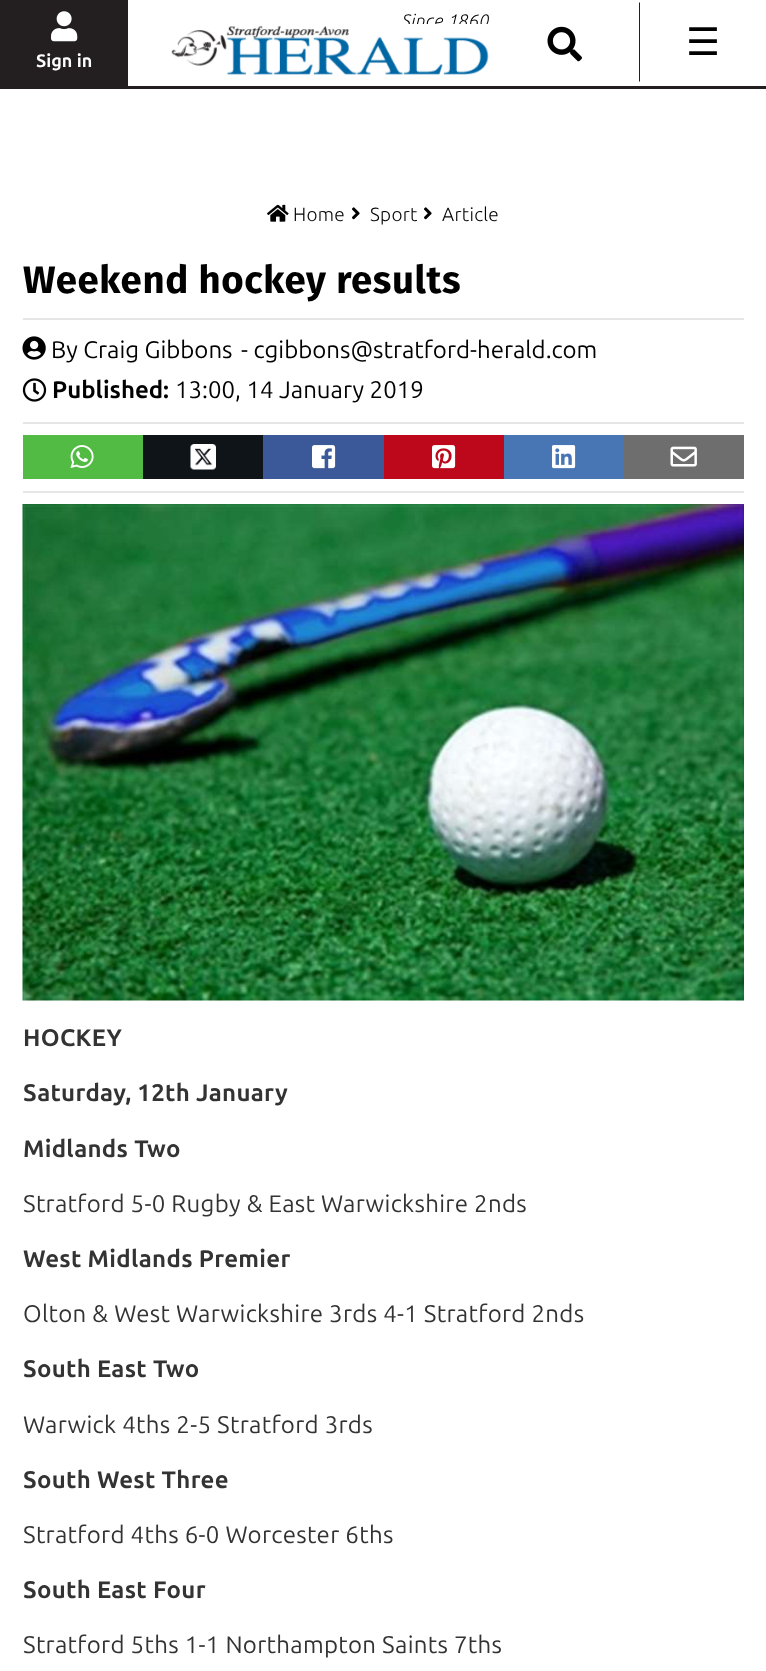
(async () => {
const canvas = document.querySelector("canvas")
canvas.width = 766
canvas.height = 1671
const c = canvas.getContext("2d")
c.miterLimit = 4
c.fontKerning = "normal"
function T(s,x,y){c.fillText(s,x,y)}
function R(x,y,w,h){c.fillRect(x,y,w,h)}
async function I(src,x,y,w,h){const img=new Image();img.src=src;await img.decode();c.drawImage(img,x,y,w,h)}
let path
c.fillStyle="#fff"
R(0,0,766,1671)
c.fillStyle="#231f20"
R(0,86,766,3)
c.letterSpacing="0.3px"
c.font="italic 300 18px Ubuntu"
c.fillStyle="#000"
T("Since 1860",402,27)
await I("1.png",171,24,318,51)
await I("2.png",547,26,35,36)
c.fillStyle="#231f20"
path = new Path2D("M639 82v-80l1 1v78z")
c.fill(path)
c.letterSpacing="0px"
c.font="38px DejaVu Sans"
c.fillStyle="#000"
T("☰",686,55)
c.fillStyle="#231f20"
R(0,0,128,86)
await I("3.png",51,11,27,31)
c.font="bold 18px Ubuntu"
c.fillStyle="#fff"
T("Sign in",36,67)
await I("4.png",267,204,22,18)
c.letterSpacing="0.3px"
c.font="300 19px Ubuntu"
c.fillStyle="#000"
T("Home",293,221)
await I("5.png",352,207,8,13)
T("Sport",370,221)
await I("5.png",424,207,8,13)
T("Article",442,221)
c.letterSpacing="0.6px"
c.font="bold 38.4px Fira Sans"
T("Weekend hockey results",23,293)
c.fillStyle="#e6e6e6"
R(23,318,721,2)
await I("6.png",22,336,24,24)
c.letterSpacing="0px"
c.font="24px Ubuntu"
c.fillStyle="#000"
T("By Craig Gibbons",51,358)
T("- cgibbons@stratford-herald.com",241,358)
await I("7.png",22,378,25,24)
c.font="bold 24px Ubuntu"
T("Published:",52,398)
c.font="24px Ubuntu"
T("13:00, 14 January 2019",175,398)
c.fillStyle="#e6e6e6"
R(23,422,721,2)
c.fillStyle="#52bb44"
R(23,435,120,44)
await I("8.png",70,445,24,24)
c.fillStyle="#0f1419"
R(143,435,120,44)
await I("9.png",190,444,26,26)
c.fillStyle="#3b5998"
R(263,435,121,44)
await I("10.png",312,445,24,24)
c.fillStyle="#bd081c"
R(384,435,120,44)
await I("11.png",432,445,24,24)
c.fillStyle="#4875b4"
R(504,435,120,44)
await I("12.png",552,445,24,24)
c.fillStyle="#6e6e6e"
R(624,435,120,44)
await I("13.png",670,446,27,21)
c.fillStyle="#e6e6e6"
R(23,491,721,2)
await I("14.png",22,504,722,497)
c.letterSpacing="0.3px"
c.font="bold 24px Ubuntu"
c.fillStyle="#333"
T("HOCKEY",23,1046)
T("Saturday, 12th January",23,1101)
T("Midlands Two",23,1157)
c.font="24px Ubuntu"
T("Stratford 5-0 Rugby & East Warwickshire 2nds",23,1212)
c.font="bold 24px Ubuntu"
T("West Midlands Premier",23,1267)
c.font="24px Ubuntu"
T("Olton & West Warwickshire 3rds 4-1 Stratford 2nds",23,1322)
c.font="bold 24px Ubuntu"
T("South East Two",23,1377)
c.font="24px Ubuntu"
T("Warwick 4ths 2-5 Stratford 3rds",23,1433)
c.font="bold 24px Ubuntu"
T("South West Three",23,1488)
c.font="24px Ubuntu"
T("Stratford 4ths 6-0 Worcester 6ths",23,1543)
c.font="bold 24px Ubuntu"
T("South East Four",23,1598)
c.font="24px Ubuntu"
T("Stratford 5ths 1-1 Northampton Saints 7ths",23,1653)
})()
